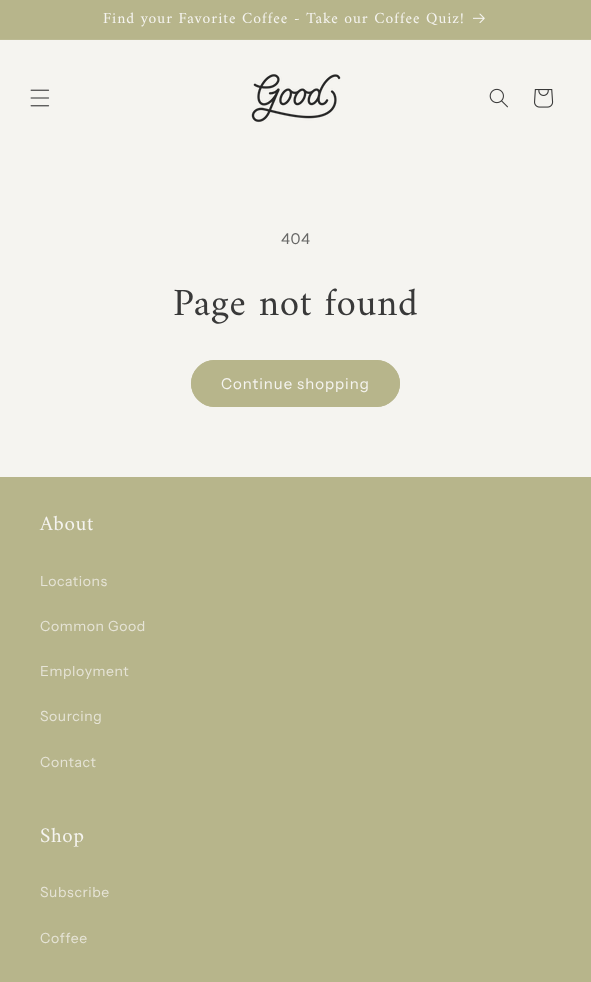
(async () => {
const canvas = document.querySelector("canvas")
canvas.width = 591
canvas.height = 982
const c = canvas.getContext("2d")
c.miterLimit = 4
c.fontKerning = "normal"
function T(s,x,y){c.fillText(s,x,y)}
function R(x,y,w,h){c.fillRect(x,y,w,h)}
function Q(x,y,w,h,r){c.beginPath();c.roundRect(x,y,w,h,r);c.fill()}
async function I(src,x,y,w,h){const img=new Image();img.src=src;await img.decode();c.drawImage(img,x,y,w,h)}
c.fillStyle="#f5f4f0"
R(0,0,591,982)
c.fillStyle="#b7b58b"
R(0,0,591,39)
c.fillStyle="#bcba93"
R(0,39,591,1)
c.letterSpacing="1px"
c.font="15.6px Amiri"
c.fillStyle="#f5f4f0"
T("Find your Favorite Coffee - Take our Coffee Quiz!",103,23)
await I("1.png",473,13,12,10)
await I("2.png",30,89,20,18)
await I("3.png",251,74,90,49)
await I("4.png",489,88,19,20)
await I("5.png",534,89,20,19)
c.letterSpacing="0.6px"
c.font="15px Instrument Sans"
c.fillStyle="#686867"
T("404",281,244)
c.letterSpacing="0.75px"
c.font="39px Amiri"
c.fillStyle="#393939"
T("Page not found",173,315)
c.fillStyle="#b7b58b"
Q(191,360,209,47,23.5)
c.beginPath()
c.roundRect(191.5,360.5,208,46,23)
c.strokeStyle="#b7b58b"
c.stroke()
c.letterSpacing="1px"
c.font="15px Instrument Sans"
c.fillStyle="#f5f4f0"
T("Continue shopping",221,389)
c.fillStyle="#b7b58b"
R(0,477,591,505)
c.letterSpacing="0.75px"
c.font="21px Amiri"
c.fillStyle="#f5f4f0"
T("About",40,530)
c.letterSpacing="0.6px"
c.font="14px Instrument Sans"
c.fillStyle="#e6e4d7"
T("Locations",40,586)
T("Common Good",40,631)
T("Employment",40,676)
T("Sourcing",40,721)
T("Contact",40,767)
c.letterSpacing="0.75px"
c.font="21px Amiri"
c.fillStyle="#f5f4f0"
T("Shop",40,842)
c.letterSpacing="0.6px"
c.font="14px Instrument Sans"
c.fillStyle="#e6e4d7"
T("Subscribe",40,897)
T("Coffee",40,943)
})()
